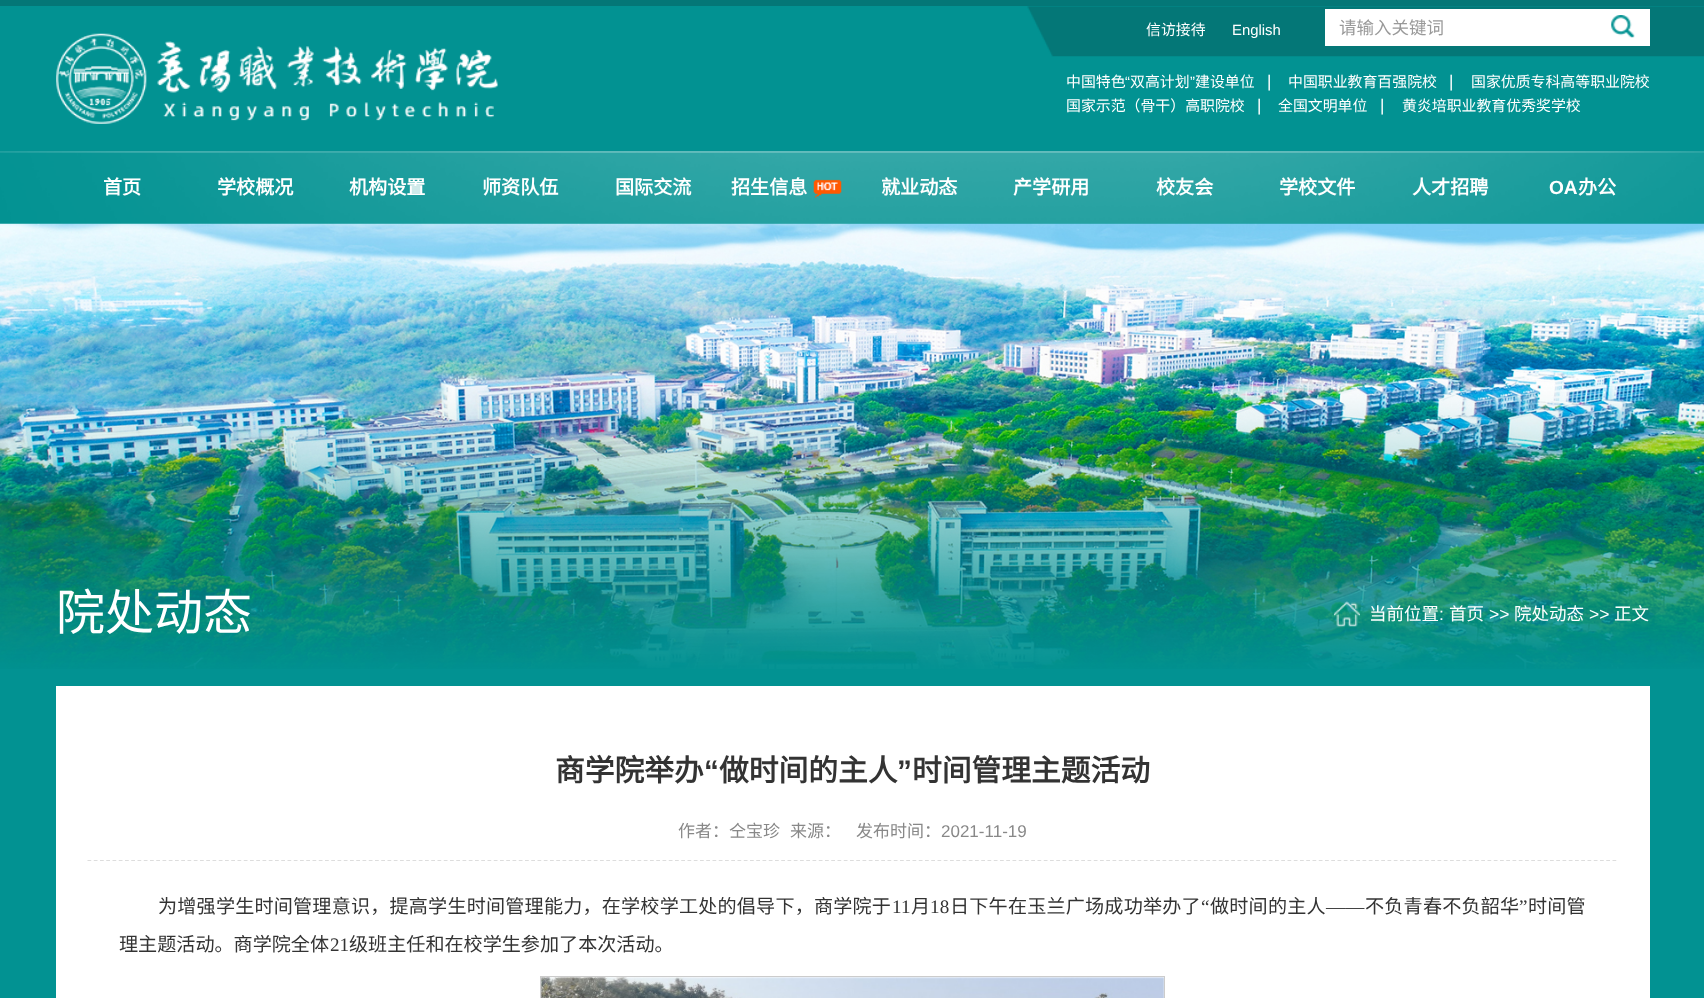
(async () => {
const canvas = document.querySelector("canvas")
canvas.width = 1704
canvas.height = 998
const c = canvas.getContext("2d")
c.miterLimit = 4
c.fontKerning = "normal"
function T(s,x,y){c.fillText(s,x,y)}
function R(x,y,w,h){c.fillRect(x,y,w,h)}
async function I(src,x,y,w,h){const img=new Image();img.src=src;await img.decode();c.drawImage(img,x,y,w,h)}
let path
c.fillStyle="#029292"
R(0,0,1704,998)
c.fillStyle="#047777"
R(0,0,1704,6)
await I("1.png",1027,6,677,51)
await I("2.png",56,33,442,91)
c.font="14.9px Noto Sans CJK SC"
c.fillStyle="#fff"
T("信访接待",1146,35)
c.font="14.9px Liberation Sans"
T("English",1232,35)
R(1325,9,325,37)
c.font="17.5px Noto Sans CJK SC"
c.fillStyle="#999"
T("请输入关键词",1339,34)
await I("3.png",1611,15,24,23)
c.font="14.9px Noto Sans CJK SC"
c.fillStyle="#fff"
T("中国特色",1066,87)
c.font="14.9px Liberation Sans"
T("“",1125,87)
c.font="14.9px Noto Sans CJK SC"
T("双高计划",1130,87)
c.font="14.9px Liberation Sans"
T("”",1190,87)
c.font="14.9px Noto Sans CJK SC"
T("建设单位",1195,87)
c.font="17px Liberation Sans"
T("|",1267,87)
c.font="14.9px Noto Sans CJK SC"
T("中国职业教育百强院校",1288,87)
c.font="17px Liberation Sans"
T("|",1449,87)
c.font="14.9px Noto Sans CJK SC"
T("国家优质专科高等职业院校",1471,87)
T("国家示范（骨干）高职院校",1066,111)
c.font="17px Liberation Sans"
T("|",1257,111)
c.font="14.9px Noto Sans CJK SC"
T("全国文明单位",1278,111)
c.font="17px Liberation Sans"
T("|",1380,111)
c.font="14.9px Noto Sans CJK SC"
T("黄炎培职业教育优秀奖学校",1402,111)
await I("4.png",0,151,1704,73)
c.font="bold 19.1px Noto Sans CJK SC"
T("首页",103,194)
T("学校概况",217,194)
T("机构设置",349,194)
T("师资队伍",482,194)
T("国际交流",615,194)
T("招生信息",731,194)
await I("5.png",813,179,29,19)
T("就业动态",881,194)
T("产学研用",1013,194)
T("校友会",1156,194)
T("学校文件",1279,194)
T("人才招聘",1412,194)
c.font="bold 19.1px Liberation Sans"
T("OA",1549,194)
c.font="bold 19.1px Noto Sans CJK SC"
T("办公",1578,194)
await I("6.png",0,223,1704,446)
c.font="49px Noto Sans CJK SC"
T("院处动态",56,630)
await I("7.png",1333,601,27,26)
c.font="17.5px Noto Sans CJK SC"
T("当前位置",1369,620)
c.font="17.5px Liberation Sans"
T(":",1439,620)
c.font="17.5px Noto Sans CJK SC"
T("首页",1449,620)
c.font="17.5px Liberation Sans"
T(">>",1489,620)
c.font="17.5px Noto Sans CJK SC"
T("院处动态",1514,620)
c.font="17.5px Liberation Sans"
T(">>",1589,620)
c.font="17.5px Noto Sans CJK SC"
T("正文",1614,620)
R(56,686,1594,312)
c.font="bold 29.75px Noto Sans CJK SC"
c.fillStyle="#333"
T("商学院举办",555,781)
c.font="bold 29.75px Liberation Sans"
T("“",704,781)
c.font="bold 29.75px Noto Sans CJK SC"
T("做时间的主人",719,781)
c.font="bold 29.75px Liberation Sans"
T("”",897,781)
c.font="bold 29.75px Noto Sans CJK SC"
T("时间管理主题活动",912,781)
path = new Path2D("M87.5 860.5h1530")
c.strokeStyle="#ddd"
c.lineWidth=1.2
c.setLineDash([3.75,2.5])
c.stroke(path)
c.font="17px Noto Sans CJK SC"
c.fillStyle="#888"
T("作者：仝宝珍",678,837)
T("来源：",790,837)
T("发布时间：",856,837)
c.font="17px Liberation Sans"
T("2021-11-19",941,837)
c.letterSpacing="0.2px"
c.font="19.1px Noto Sans CJK SC"
c.fillStyle="#333"
T("为增强学生时间管理意识，提高学生时间管理能力，在学校学工处的倡导下，商学院于",158,913)
c.font="19.1px Liberation Serif"
T("11",892,913)
c.font="19.1px Noto Sans CJK SC"
T("月",911,913)
c.font="19.1px Liberation Serif"
T("18",930,913)
c.font="19.1px Noto Sans CJK SC"
T("日下午在玉兰广场成功举办了",950,913)
c.font="19.1px Liberation Serif"
T("“",1201,913)
c.font="19.1px Noto Sans CJK SC"
T("做时间的主人",1210,913)
T("不负青春不负韶华",1365,913)
c.font="19.1px Liberation Serif"
T("”",1519,913)
c.font="19.1px Noto Sans CJK SC"
T("时间管",1528,913)
c.font="19.1px Liberation Serif"
T("——",1326,913)
c.letterSpacing="0px"
c.font="19.1px Noto Sans CJK SC"
T("理主题活动。商学院全体",119,951)
c.font="19.1px Liberation Serif"
T("21",330,951)
c.font="19.1px Noto Sans CJK SC"
T("级班主任和在校学生参加了本次活动。",349,951)
c.strokeStyle="#ccc"
c.lineWidth=1
c.setLineDash([])
c.strokeRect(540.5,976.5,624,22)
await I("8.png",541,977,623,21)
})()
